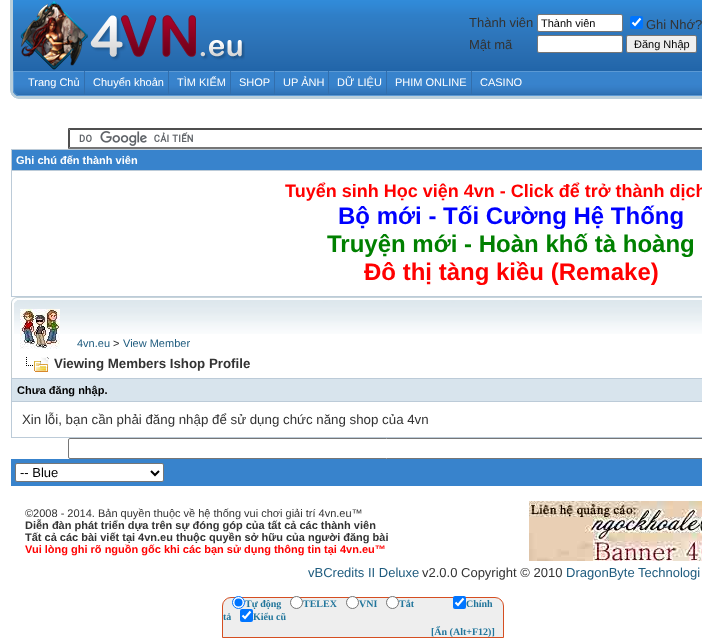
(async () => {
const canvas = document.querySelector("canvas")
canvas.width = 702
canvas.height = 638
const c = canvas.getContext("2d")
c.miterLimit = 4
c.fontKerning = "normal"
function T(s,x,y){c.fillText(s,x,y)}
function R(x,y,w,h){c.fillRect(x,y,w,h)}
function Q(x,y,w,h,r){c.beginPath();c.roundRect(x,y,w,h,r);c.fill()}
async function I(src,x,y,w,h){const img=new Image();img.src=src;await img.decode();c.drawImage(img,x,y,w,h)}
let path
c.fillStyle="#fff"
R(0,0,702,638)
await I("1.png",13,0,689,71)
c.font="13px Liberation Sans"
c.fillStyle="#333"
T("Thành viên",469,27)
c.fillStyle="#fff"
c.beginPath()
c.roundRect(537.5,14.5,85,17,1.5)
c.fill()
c.strokeStyle="#767676"
c.stroke()
c.font="11px Liberation Sans"
c.fillStyle="#000"
T("Thành viên",541,27)
c.fillStyle="#0075ff"
Q(630,16,13,13,2)
path = new Path2D("M632.5 22.5l2.5 2.5l5.5-6.5")
c.strokeStyle="#fff"
c.lineWidth=2.1
c.stroke(path)
c.font="13px Liberation Sans"
c.fillStyle="#333"
T("Ghi Nhớ?",646,29)
T("Mật mã",469,49)
c.fillStyle="#fff"
c.beginPath()
c.roundRect(537.5,35.5,85,17,1.5)
c.fill()
c.strokeStyle="#767676"
c.lineWidth=1
c.stroke()
c.fillStyle="#efefef"
c.beginPath()
c.roundRect(626.5,35.5,70,17,1.5)
c.fill()
c.stroke()
c.font="11px Liberation Sans"
c.fillStyle="#000"
T("Ðăng Nhập",634,48)
c.fillStyle="#bacfdb"
R(10,0,3,71)
await I("2.png",20,1,225,69)
await I("3.png",10,71,8,28)
await I("4.png",18,71,684,28)
c.fillStyle="#fff"
T("Trang Chủ",28,86)
c.fillStyle="#326eac"
R(84,71,1,23)
c.fillStyle="#fff"
T("Chuyển khoản",93,86)
c.fillStyle="#326eac"
R(168,71,1,23)
c.fillStyle="#fff"
T("TÌM KIẾM",177,86)
c.fillStyle="#326eac"
R(230,71,1,23)
c.fillStyle="#fff"
T("SHOP",239,86)
c.fillStyle="#326eac"
R(274,71,1,23)
c.fillStyle="#fff"
T("UP ẢNH",283,86)
c.fillStyle="#326eac"
R(328,71,1,23)
c.fillStyle="#fff"
T("DỮ LIỆU",337,86)
c.fillStyle="#326eac"
R(386,71,1,23)
c.fillStyle="#fff"
T("PHIM ONLINE",395,86)
c.fillStyle="#326eac"
R(471,71,1,23)
c.fillStyle="#fff"
T("CASINO",480,86)
await I("5.png",79,131,114,15)
c.fillStyle="#4f4f4f"
path = new Path2D("M68 128h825l-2 2h-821z")
c.fill(path)
c.fillStyle="#767676"
path = new Path2D("M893 149h-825l2-2h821z")
c.fill(path)
c.fillStyle="#4f4f4f"
path = new Path2D("M68 149v-21l2 2v17z")
c.fill(path)
c.fillStyle="#bccbd8"
R(11,149,691,148)
c.fillStyle="#3883cc"
R(12,150,690,20)
c.font="bold 11px Liberation Sans"
c.fillStyle="#fff"
T("Ghi chú đến thành viên",16,164)
R(12,171,690,125)
c.font="bold 18px Liberation Sans"
c.fillStyle="#f00"
T("Tuyển sinh Học viện 4vn - Click để trở thành dịch",285,197)
c.font="bold 24px Liberation Sans"
c.fillStyle="#00f"
T("Bộ mới - Tối Cường Hệ Thống",338,224)
c.fillStyle="#008000"
T("Truyện mới - Hoàn khố tà hoàng",327,252)
c.fillStyle="#f00"
T("Đô thị tàng kiều (Remake)",364,280)
await I("6.png",11,297,691,6)
c.fillStyle="#c4cccf"
R(11,303,1,75)
await I("7.png",14,303,688,31)
await I("8.png",20,309,40,40)
c.font="11px Liberation Sans"
c.fillStyle="#1e5b7e"
T("4vn.eu",77,347)
c.fillStyle="#333"
T(">",113,347)
c.fillStyle="#1e5b7e"
T("View Member",123,347)
await I("9.png",26,357,23,15)
c.font="bold 13.3px Liberation Sans"
c.fillStyle="#333"
T("Viewing Members Ishop Profile",54,368)
c.fillStyle="#bccbd8"
R(11,378,691,60)
c.fillStyle="#d8e4ed"
R(12,379,690,22)
c.font="bold 11px Liberation Sans"
c.fillStyle="#000"
T("Chưa đăng nhập.",17,394)
c.fillStyle="#fff"
R(12,402,690,35)
c.font="13.3px Liberation Sans"
c.fillStyle="#333"
T("Xin lỗi, bạn cần phải đăng nhập để sử dụng chức năng shop của 4vn",22,424)
c.beginPath()
c.roundRect(68.5,438.5,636,20,1.5)
c.stroke()
c.fillStyle="#3883cc"
R(11,459,691,27)
c.fillStyle="#fff"
c.beginPath()
c.roundRect(15.5,463.5,148,18,1.5)
c.fill()
c.stroke()
path = new Path2D("M151 471l4 4l4-4")
c.strokeStyle="#000"
c.lineWidth=2
c.stroke(path)
c.font="13px Liberation Sans"
c.fillStyle="#000"
T("-- Blue",20,477)
c.font="11px Liberation Sans"
c.fillStyle="#333"
T("©2008 - 2014. Bản quyền thuộc về hệ thống vui chơi giải trí 4vn.eu™",25,517)
c.font="bold 11px Liberation Sans"
T("Diễn đàn phát triển dựa trên sự đóng góp của tất cả các thành viên",25,529)
T("Tất cả các bài viết tại 4vn.eu thuộc quyền sở hữu của người đăng bài",25,541)
c.fillStyle="#f00"
T("Vui lòng ghi rõ nguồn gốc khi các bạn sử dụng thông tin tại 4vn.eu™",25,553)
await I("10.png",529,501,173,60)
c.font="13px Liberation Sans"
c.fillStyle="#1e5b7e"
T("vBCredits II Deluxe",308,577)
c.fillStyle="#333"
T("v2.0.0 Copyright © 2010",422,577)
c.fillStyle="#1e5b7e"
T("DragonByte Technologi",566,577)
c.fillStyle="#eee"
c.beginPath()
c.roundRect(222.5,597.5,281,40,[8.5,8.5,0,0])
c.fill()
c.strokeStyle="#d54e21"
c.lineWidth=1
c.stroke()
c.font="bold 10px Liberation Serif"
c.fillStyle="#21759b"
T("Tự động",245,607)
c.fillStyle="#fff"
c.beginPath()
c.arc(238.5,602.5,6,0,7)
c.fill()
c.strokeStyle="#0075ff"
c.stroke()
c.fillStyle="#0075ff"
c.beginPath()
c.arc(238.5,602.5,4,0,7)
c.fill()
c.fillStyle="#fff"
c.beginPath()
c.arc(296.5,602.5,6,0,7)
c.fill()
c.strokeStyle="#767676"
c.stroke()
c.fillStyle="#21759b"
T("TELEX",303,607)
T("VNI",359,607)
c.fillStyle="#fff"
c.beginPath()
c.arc(352.5,602.5,6,0,7)
c.fill()
c.stroke()
c.beginPath()
c.arc(392.5,602.5,6,0,7)
c.fill()
c.stroke()
c.fillStyle="#21759b"
T("Tắt",399,607)
c.fillStyle="#0075ff"
Q(453,596,13,13,2)
path = new Path2D("M455.5 602.5l2.5 2.5l5.5-6.5")
c.strokeStyle="#fff"
c.lineWidth=2.1
c.stroke(path)
c.fillStyle="#21759b"
T("Chính",466,607)
T("tả",223,620)
c.fillStyle="#0075ff"
Q(240,609,13,13,2)
path = new Path2D("M242.5 615.5l2.5 2.5l5.5-6.5")
c.stroke(path)
c.fillStyle="#21759b"
T("Kiểu cũ",253,620)
T("[Ẩn (Alt+F12)]",431,635)
})()
